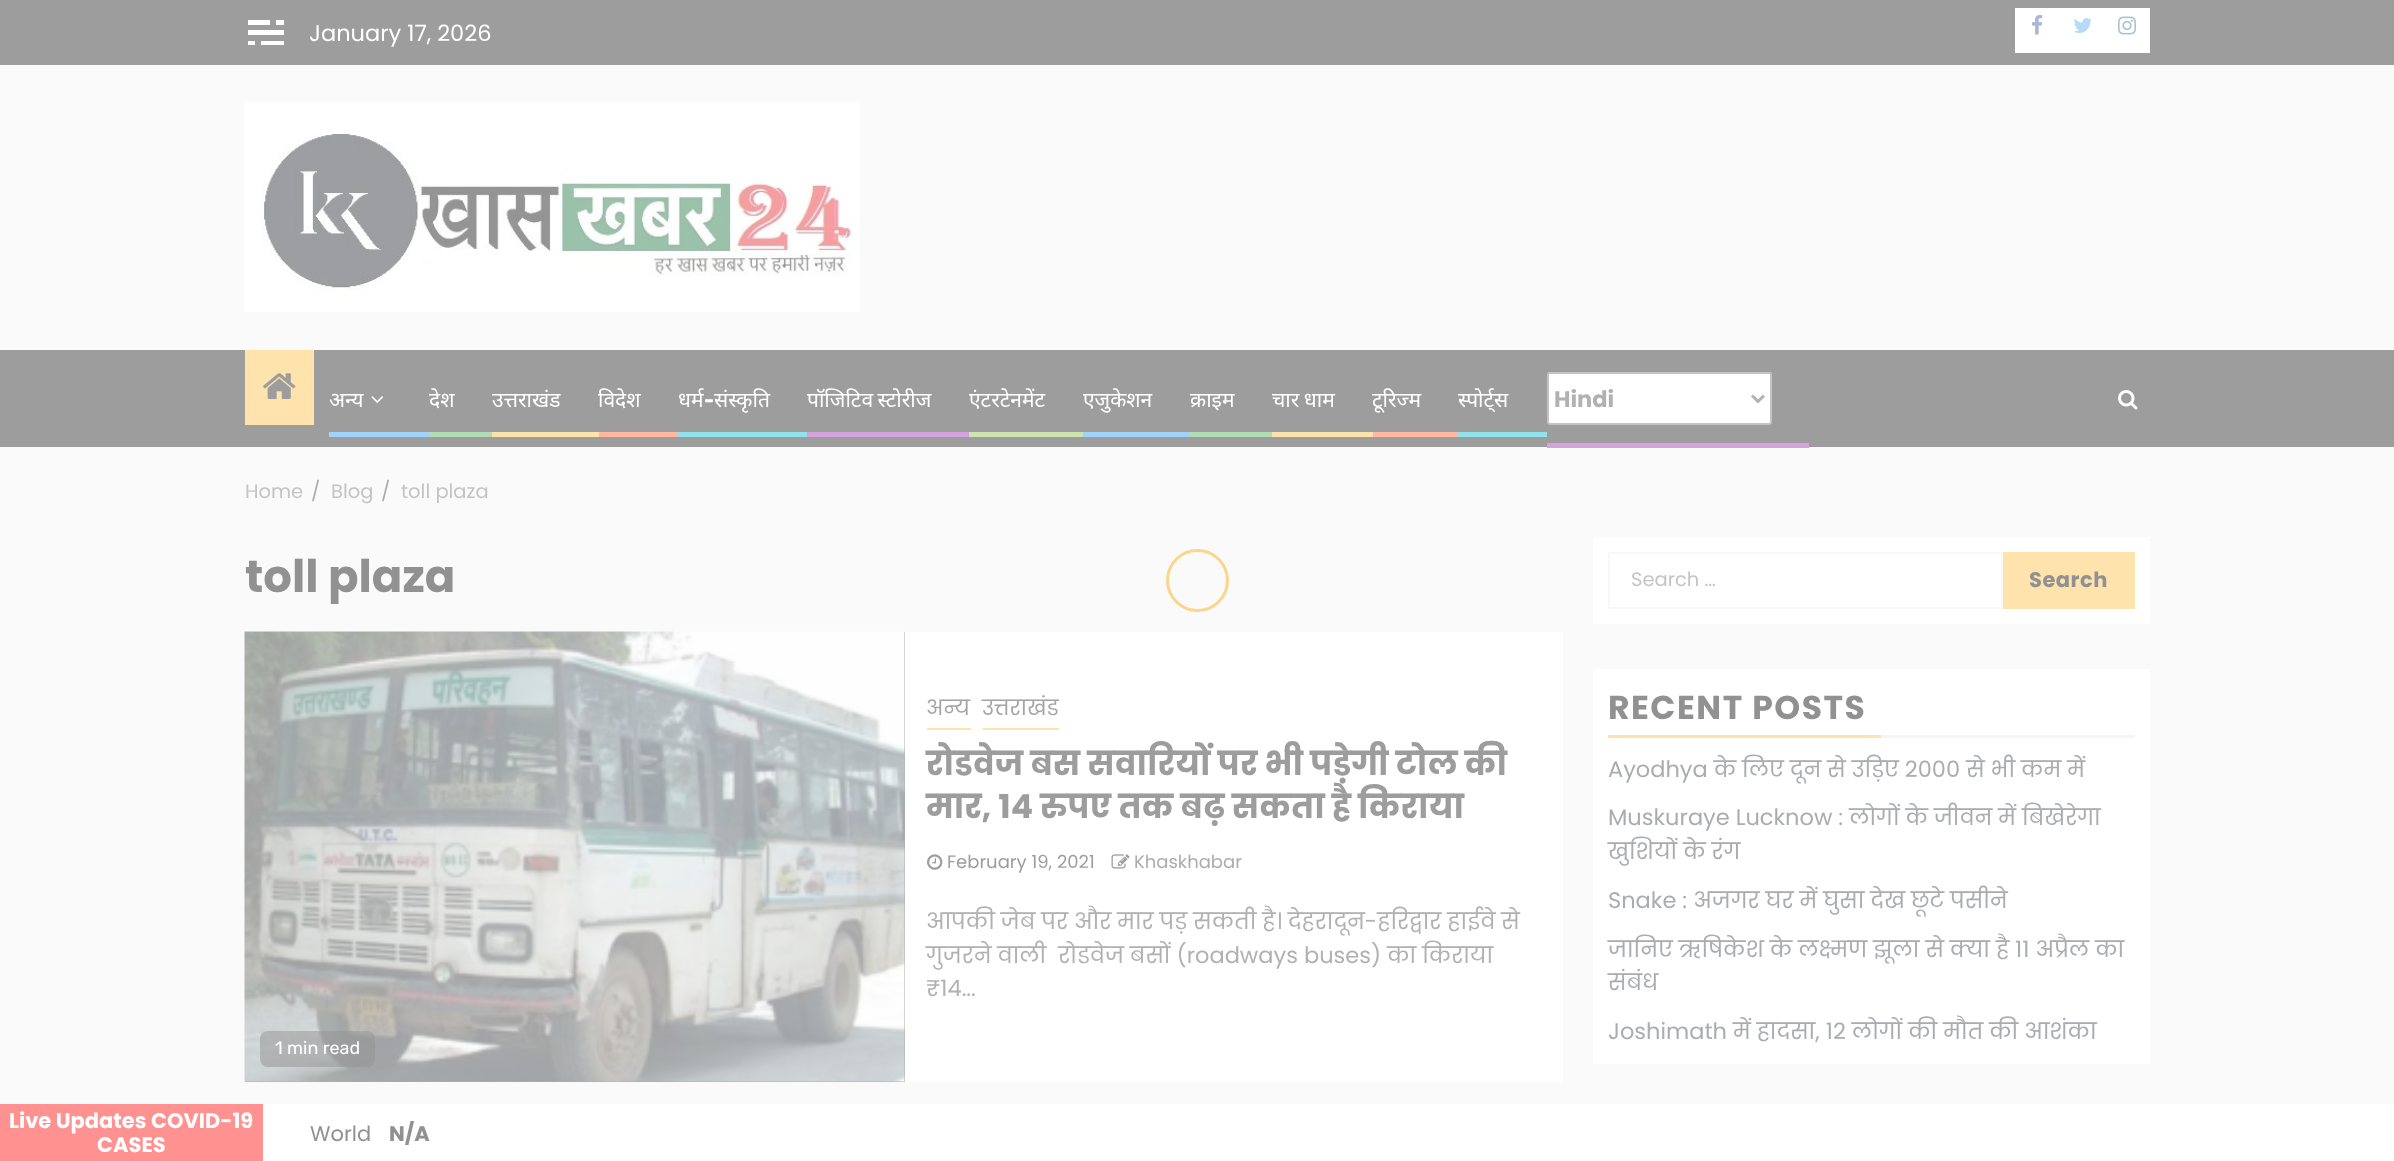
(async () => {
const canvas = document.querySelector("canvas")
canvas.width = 2394
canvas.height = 1161
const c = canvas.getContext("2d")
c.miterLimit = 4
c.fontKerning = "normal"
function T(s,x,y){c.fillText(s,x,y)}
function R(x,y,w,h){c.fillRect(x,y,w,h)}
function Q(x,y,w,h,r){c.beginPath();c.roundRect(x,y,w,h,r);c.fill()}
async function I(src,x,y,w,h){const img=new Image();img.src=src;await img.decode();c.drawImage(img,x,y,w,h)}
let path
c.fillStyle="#fafafa"
R(0,0,2394,1161)
c.fillStyle="#9d9d9d"
R(0,0,2394,65)
c.fillStyle="#fff"
R(276,20,8,5)
R(248,20,22,5)
R(248,30,36,5)
R(261,41,23,4)
R(248,41,7,4)
c.font="22.5px Poppins"
T("January 17, 2026",309,41)
R(2015,8,135,45)
await I("1.png",2032,15,11,20)
await I("2.png",2073,18,19,15)
await I("3.png",2118,16,18,19)
await I("4.png",244,102,616,210)
c.fillStyle="#9d9d9d"
R(0,350,2394,97)
c.fillStyle="#ffe3ac"
R(245,350,69,75)
await I("5.png",263,373,33,26)
c.font="21px Noto Sans"
c.fillStyle="#fff"
T("अन्य",329,407)
await I("6.png",371,396,12,7)
c.fillStyle="#a0d2fa"
R(329,432,100,5)
c.fillStyle="#fff"
T("देश",429,407)
c.fillStyle="#b2ddb4"
R(429,432,63,5)
c.fillStyle="#fff"
T("उत्तराखंड",492,407)
c.fillStyle="#ffe3ac"
R(492,432,107,5)
c.fillStyle="#fff"
T("विदेश",598,407)
c.fillStyle="#ffb7a0"
R(599,432,79,5)
c.fillStyle="#fff"
T("धर्म",678,407)
c.font="bold 21px Rubik"
T("-",704,407)
c.font="21px Noto Sans"
T("संस्कृति",714,407)
c.fillStyle="#91e2ed"
R(678,432,129,5)
c.wordSpacing="-1px"
c.fillStyle="#fff"
T("पॉजिटिव स्टोरीज",807,407)
c.fillStyle="#d4a2dd"
R(807,432,162,5)
c.wordSpacing="0px"
c.fillStyle="#fff"
T("एंटरटेनमेंट",969,407)
c.fillStyle="#cde5b1"
R(969,432,114,5)
c.fillStyle="#fff"
T("एजुकेशन",1083,407)
c.fillStyle="#a0d2fa"
R(1083,432,107,5)
c.fillStyle="#fff"
T("क्राइम",1190,407)
c.fillStyle="#b2ddb4"
R(1190,432,82,5)
c.wordSpacing="-1px"
c.fillStyle="#fff"
T("चार धाम",1272,407)
c.fillStyle="#ffe3ac"
R(1272,432,101,5)
c.wordSpacing="0px"
c.fillStyle="#fff"
T("टूरिज्म",1372,407)
c.fillStyle="#ffb7a0"
R(1373,432,85,5)
c.fillStyle="#fff"
T("स्पोर्ट्स",1458,407)
c.fillStyle="#91e2ed"
R(1458,432,89,5)
c.fillStyle="#fff"
c.beginPath()
c.roundRect(1548,373,223,51,2)
c.fill()
c.strokeStyle="#c4c4c4"
c.lineWidth=2
c.stroke()
path = new Path2D("M1752 395.5l6 6l6-6")
c.strokeStyle="#b1b1b1"
c.lineWidth=3
c.stroke(path)
c.font="bold 22.5px Poppins"
c.fillStyle="#b1b1b1"
T("Hindi",1554,407)
c.fillStyle="#d4a2dd"
R(1547,443,262,5)
await I("7.png",2118,390,20,20)
c.font="19.5px Poppins"
c.fillStyle="#c4c4c4"
T("Home",245,498)
c.fillStyle="#aaacaf"
T("/",311,498)
c.fillStyle="#c4c4c4"
T("Blog",331,498)
c.fillStyle="#aaacaf"
T("/",381,498)
c.fillStyle="#c4c4c4"
T("toll plaza",401,498)
c.font="bold 45px Poppins"
c.fillStyle="#919191"
T("toll plaza",245,592)
c.fillStyle="#fff"
R(905,632,658,450)
c.fillStyle="#ffe3ac"
R(927,728,44,2)
c.font="21px Poppins"
c.fillStyle="#a4a4a4"
T("अन्य",926,715)
c.fillStyle="#ffe3ac"
R(983,728,76,2)
c.fillStyle="#a4a4a4"
T("उत्तराखंड",982,715)
c.font="bold 33px Poppins"
c.fillStyle="#9d9d9d"
T("रोडवेज बस सवारियों पर भी पड़ेगी टोल की",926,775)
T("मार, 14 रुपए तक बढ़ सकता है किराया",926,818)
await I("8.png",927,854,16,16)
c.font="18px Poppins"
T("February 19, 2021",947,868)
await I("9.png",1111,854,19,15)
c.fillStyle="#aaacaf"
T("Khaskhabar",1134,868)
c.font="22.5px Poppins"
c.fillStyle="#b1b1b1"
T("आपकी जेब पर और मार पड़ सकती है। देहरादून-हरिद्वार हाईवे से",926,929)
T("गुजरने वाली  रोडवेज बसों (roadways buses) का किराया",926,963)
T("₹14...",926,996)
c.fillStyle="#adadad"
R(245,632,660,450)
await I("10.png",244,631,661,451)
c.fillStyle="#91919180"
Q(260,1031,115,36,8)
c.font="18px Rubik"
c.fillStyle="#fff"
T("1 min read",275,1054)
R(1593,537,557,87)
c.strokeStyle="#f8f8f8"
c.lineWidth=2
c.strokeRect(1609,553,393,55)
c.font="19.5px Poppins"
c.fillStyle="#c4c4c4"
T("Search …",1631,586)
c.fillStyle="#ffe3ac"
R(2003,552,132,57)
c.letterSpacing="0.5px"
c.font="bold 21px Poppins"
c.fillStyle="#919191"
T("Search",2029,587)
c.fillStyle="#fff"
R(1593,669,557,395)
c.fillStyle="#ffe3ac"
R(1608,735,273,3)
c.letterSpacing="1.5px"
c.font="bold 33px Poppins"
c.fillStyle="#919191"
T("RECENT POSTS",1608,719)
c.fillStyle="#f5f5f5"
R(1881,735,254,3)
c.letterSpacing="0px"
c.font="22.5px Poppins"
c.fillStyle="#aaacaf"
T("Ayodhya के लिए दून से उड़िए 2000 से भी कम में",1608,777)
T("Muskuraye Lucknow : लोगों के जीवन में बिखेरेगा",1608,825)
T("खुशियों के रंग",1608,859)
T("Snake : अजगर घर में घुसा देख छूटे पसीने",1608,908)
T("जानिए ऋषिकेश के लक्ष्मण झूला से क्या है 11 अप्रैल का",1608,957)
T("संबंध",1608,990)
T("Joshimath में हादसा, 12 लोगों की मौत की आशंका",1608,1039)
c.fillStyle="#fff"
R(263,1104,2131,57)
c.fillStyle="#ff9191"
R(0,1104,263,57)
c.font="bold 21px Poppins"
c.fillStyle="#fff"
T("Live Updates COVID-19",9,1128)
T("CASES",97,1152)
c.font="21px Poppins"
c.fillStyle="#919191"
T("World",310,1141)
c.font="bold 21px Poppins"
T("N/A",389,1141)
c.beginPath()
c.arc(1197.5,580.5,30,0,7)
c.strokeStyle="#fad58c"
c.lineWidth=3
c.stroke()
})()
